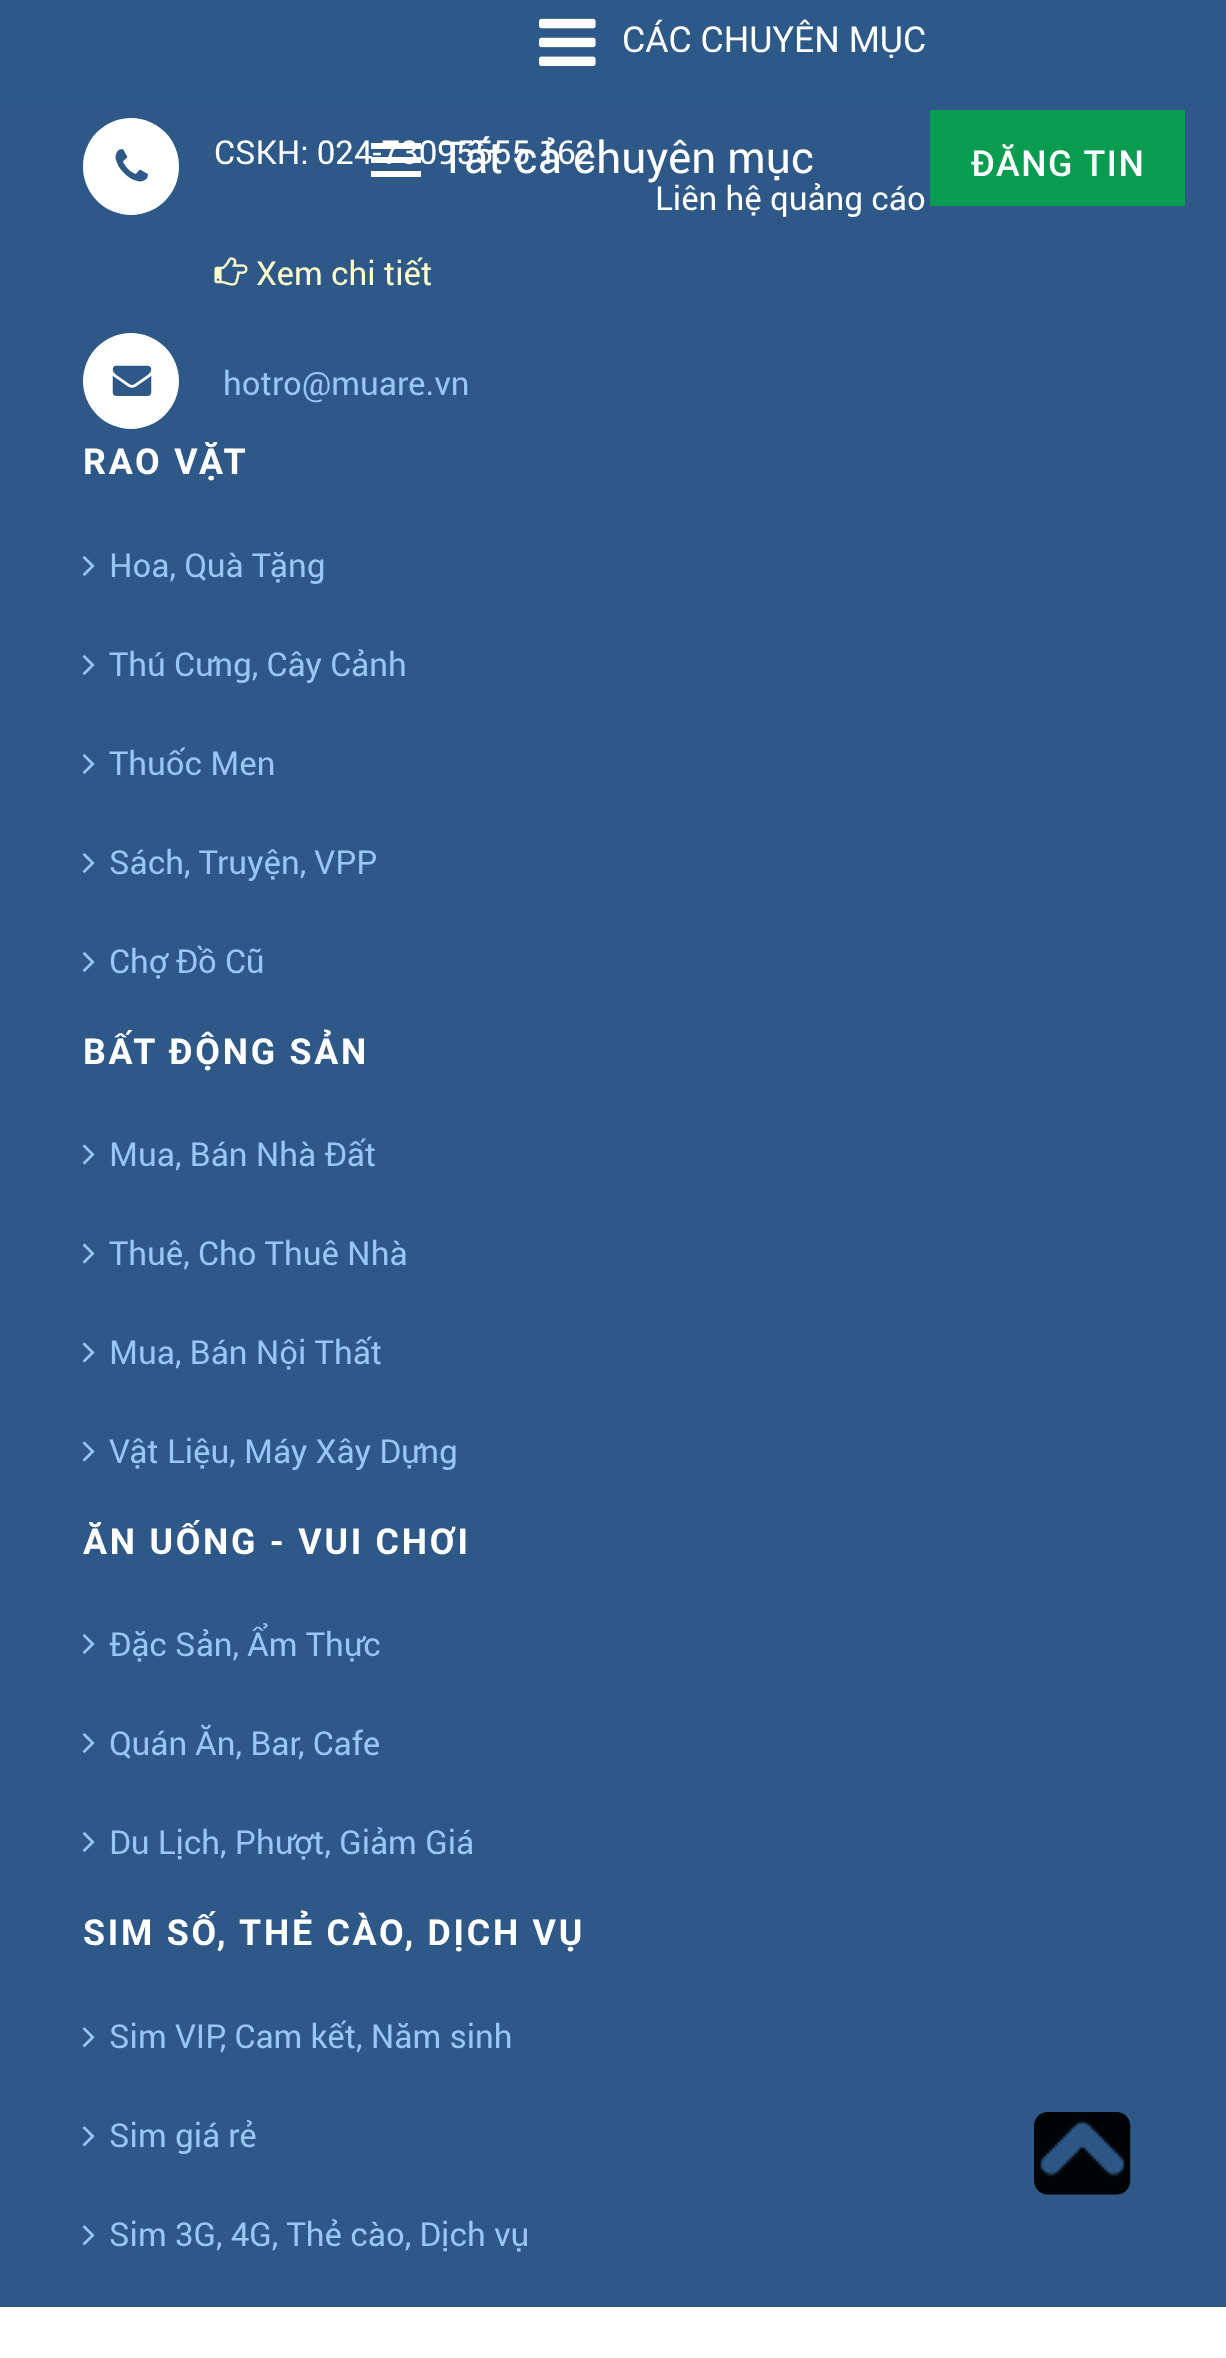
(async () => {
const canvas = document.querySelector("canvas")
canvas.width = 1226
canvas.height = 2358
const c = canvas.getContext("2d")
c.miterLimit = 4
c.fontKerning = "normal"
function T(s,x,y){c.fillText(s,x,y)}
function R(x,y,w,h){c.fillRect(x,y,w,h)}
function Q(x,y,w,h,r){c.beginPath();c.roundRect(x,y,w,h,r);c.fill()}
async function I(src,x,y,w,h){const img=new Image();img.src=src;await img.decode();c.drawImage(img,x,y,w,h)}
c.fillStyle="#fff"
R(0,0,1226,2358)
c.fillStyle="#2c5987"
R(0,0,1226,99)
await I("1.png",539,18,57,48)
c.font="35.75px 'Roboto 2'"
c.fillStyle="#fff"
T("CÁC CHUYÊN MỤC",622,52)
c.fillStyle="#2e5888"
R(0,99,1226,2208)
c.fillStyle="#fff"
R(371,143,50,6)
R(371,157,50,6)
R(371,171,50,6)
c.font="33px Roboto"
T("CSKH: 024-73095555 162",214,164)
c.font="44px Roboto"
T("Tất cả chuyên mục",440,173)
c.fillStyle="#079c50"
R(930,110,255,96)
c.letterSpacing="1.5px"
c.font="500 35.75px Roboto"
c.fillStyle="#fff"
T("ĐĂNG TIN",971,176)
Q(83,118,96,97,48)
await I("2.png",115,149,33,33)
c.letterSpacing="0px"
c.font="33px Roboto"
T("Liên hệ quảng cáo",655,210)
await I("3.png",214,257,34,29)
c.fillStyle="#ffc"
T("Xem chi tiết",256,285)
c.fillStyle="#fff"
c.beginPath()
c.arc(131,381,48,0,7)
c.fill()
await I("4.png",112,365,40,31)
c.fillStyle="#9ac6f5"
T("hotro@muare.vn",223,395)
c.letterSpacing="2.75px"
c.font="bold 35.75px Roboto"
c.fillStyle="#fff"
T("RAO VẶT",83,474)
await I("5.png",82,556,13,20)
c.letterSpacing="0px"
c.font="33px Roboto"
c.fillStyle="#9ac6f5"
T("Hoa, Quà Tặng",109,577)
await I("5.png",82,655,13,20)
T("Thú Cưng, Cây Cảnh",109,676)
await I("5.png",82,754,13,20)
T("Thuốc Men",109,775)
await I("5.png",82,853,13,20)
T("Sách, Truyện, VPP",109,874)
await I("5.png",82,952,13,20)
T("Chợ Đồ Cũ",109,973)
c.letterSpacing="2.75px"
c.font="bold 35.75px Roboto"
c.fillStyle="#fff"
T("BẤT ĐỘNG SẢN",83,1064)
await I("6.png",82,1144,13,21)
c.letterSpacing="0px"
c.font="33px Roboto"
c.fillStyle="#9ac6f5"
T("Mua, Bán Nhà Đất",109,1166)
await I("6.png",82,1243,13,21)
T("Thuê, Cho Thuê Nhà",109,1265)
await I("6.png",82,1342,13,21)
T("Mua, Bán Nội Thất",109,1364)
await I("6.png",82,1441,13,21)
T("Vật Liệu, Máy Xây Dựng",109,1463)
c.letterSpacing="2.75px"
c.font="bold 35.75px Roboto"
c.fillStyle="#fff"
T("ĂN UỐNG - VUI CHƠI",83,1554)
await I("5.png",82,1634,13,20)
c.letterSpacing="0px"
c.font="33px Roboto"
c.fillStyle="#9ac6f5"
T("Đặc Sản, Ẩm Thực",109,1656)
await I("5.png",82,1733,13,20)
T("Quán Ăn, Bar, Cafe",109,1755)
await I("5.png",82,1832,13,20)
T("Du Lịch, Phượt, Giảm Giá",109,1854)
c.letterSpacing="2.75px"
c.font="bold 35.75px Roboto"
c.fillStyle="#fff"
T("SIM SỐ, THẺ CÀO, DỊCH VỤ",83,1945)
await I("7.png",82,2027,13,21)
c.letterSpacing="0px"
c.font="33px Roboto"
c.fillStyle="#9ac6f5"
T("Sim VIP, Cam kết, Năm sinh",109,2048)
await I("7.png",82,2126,13,21)
T("Sim giá rẻ",109,2147)
await I("7.png",82,2225,13,21)
T("Sim 3G, 4G, Thẻ cào, Dịch vụ",109,2246)
await I("8.png",1034,2112,97,83)
})()
